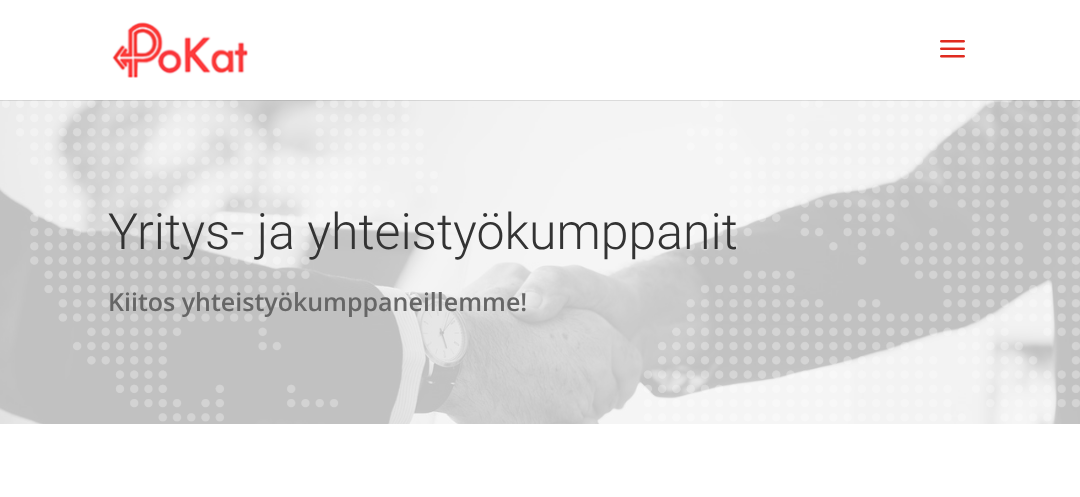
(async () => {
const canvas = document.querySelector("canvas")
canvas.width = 1080
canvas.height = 497
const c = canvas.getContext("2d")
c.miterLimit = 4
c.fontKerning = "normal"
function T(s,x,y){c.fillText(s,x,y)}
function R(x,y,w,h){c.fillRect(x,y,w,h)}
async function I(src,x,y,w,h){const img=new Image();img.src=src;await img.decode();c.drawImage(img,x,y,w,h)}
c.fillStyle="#fff"
R(0,0,1080,497)
await I("3.png",0,100,1080,324)
await I("4.png",2,100,1078,322)
c.fillStyle="#0000001a"
R(0,100,1080,1)
await I("1.png",112,22,136,56)
await I("2.png",940,40,25,18)
c.font="300 50px Roboto"
c.fillStyle="#333"
T("Yritys- ja yhteistyökumppanit",108,249)
c.font="600 25px Open Sans"
c.fillStyle="#666"
T("Kiitos yhteistyökumppaneillemme!",108,311)
})()
